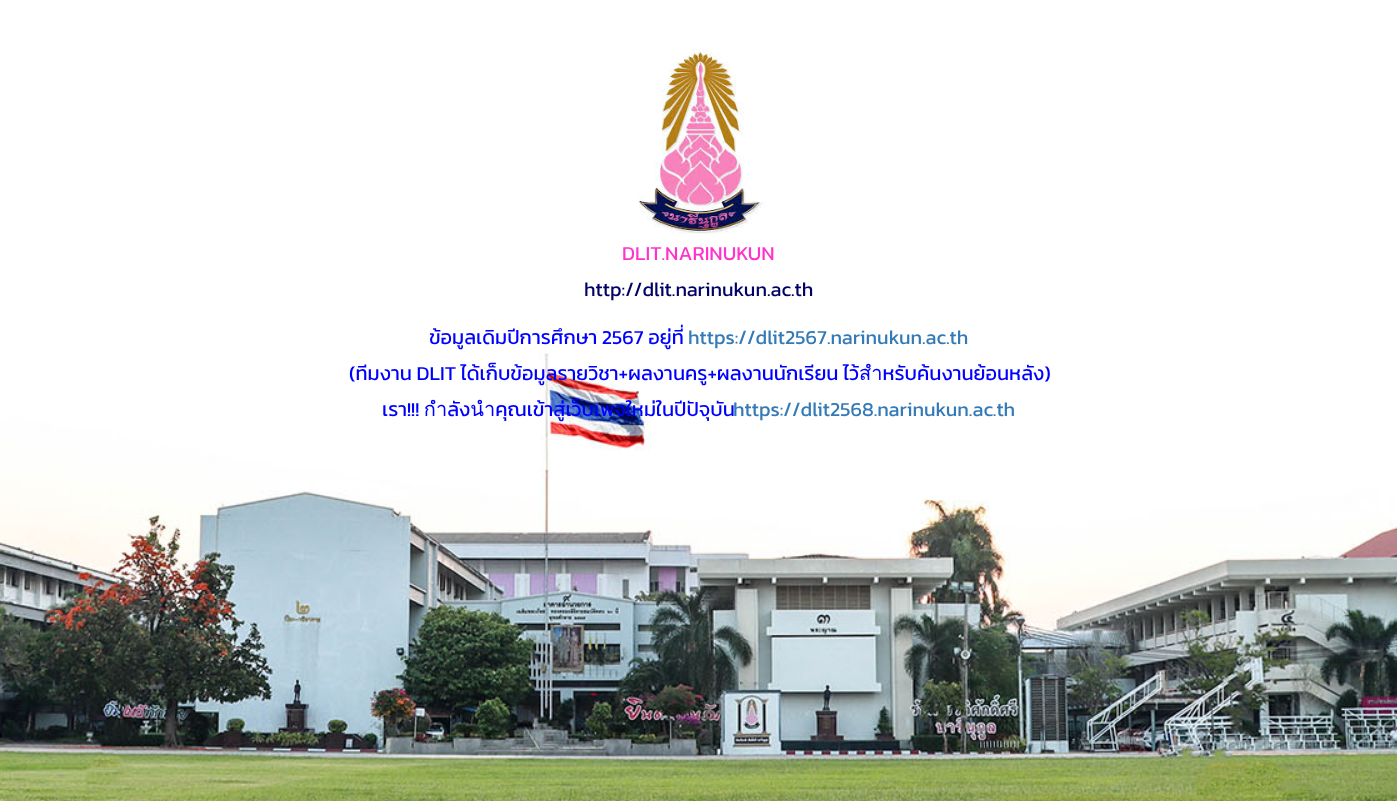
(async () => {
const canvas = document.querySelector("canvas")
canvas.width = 1397
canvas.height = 801
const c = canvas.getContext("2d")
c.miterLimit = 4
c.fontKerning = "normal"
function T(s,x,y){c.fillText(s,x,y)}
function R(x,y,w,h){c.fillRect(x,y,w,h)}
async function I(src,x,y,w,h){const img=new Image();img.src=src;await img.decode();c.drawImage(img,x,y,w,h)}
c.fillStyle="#fff"
R(0,0,1397,801)
await I("1.png",0,350,1397,451)
await I("2.png",639,49,127,185)
c.font="20px Kanit"
c.fillStyle="#f3c"
T("DLIT.NARINUKUN",622,260)
c.fillStyle="#006"
T("http://dlit.narinukun.ac.th",584,296)
c.fillStyle="#00f"
T("ข้อมูลเดิมปีการศึกษา 2567 อยู่ที่",429,344)
c.fillStyle="#337ab7"
T("https://dlit2567.narinukun.ac.th",688,344)
c.fillStyle="#00f"
T("(ทีมงาน DLIT ได้เก็บข้อมูลรายวิชา+ผลงานครู+ผลงานนักเรียน ไว้สำหรับค้นงานย้อนหลัง)",349,380)
T("เรา!!! กำลังนำคุณเข้าสู่เว็บเพจใหม่ในปีปัจุบัน",382,416)
c.fillStyle="#337ab7"
T("https://dlit2568.narinukun.ac.th",733,416)
})()
